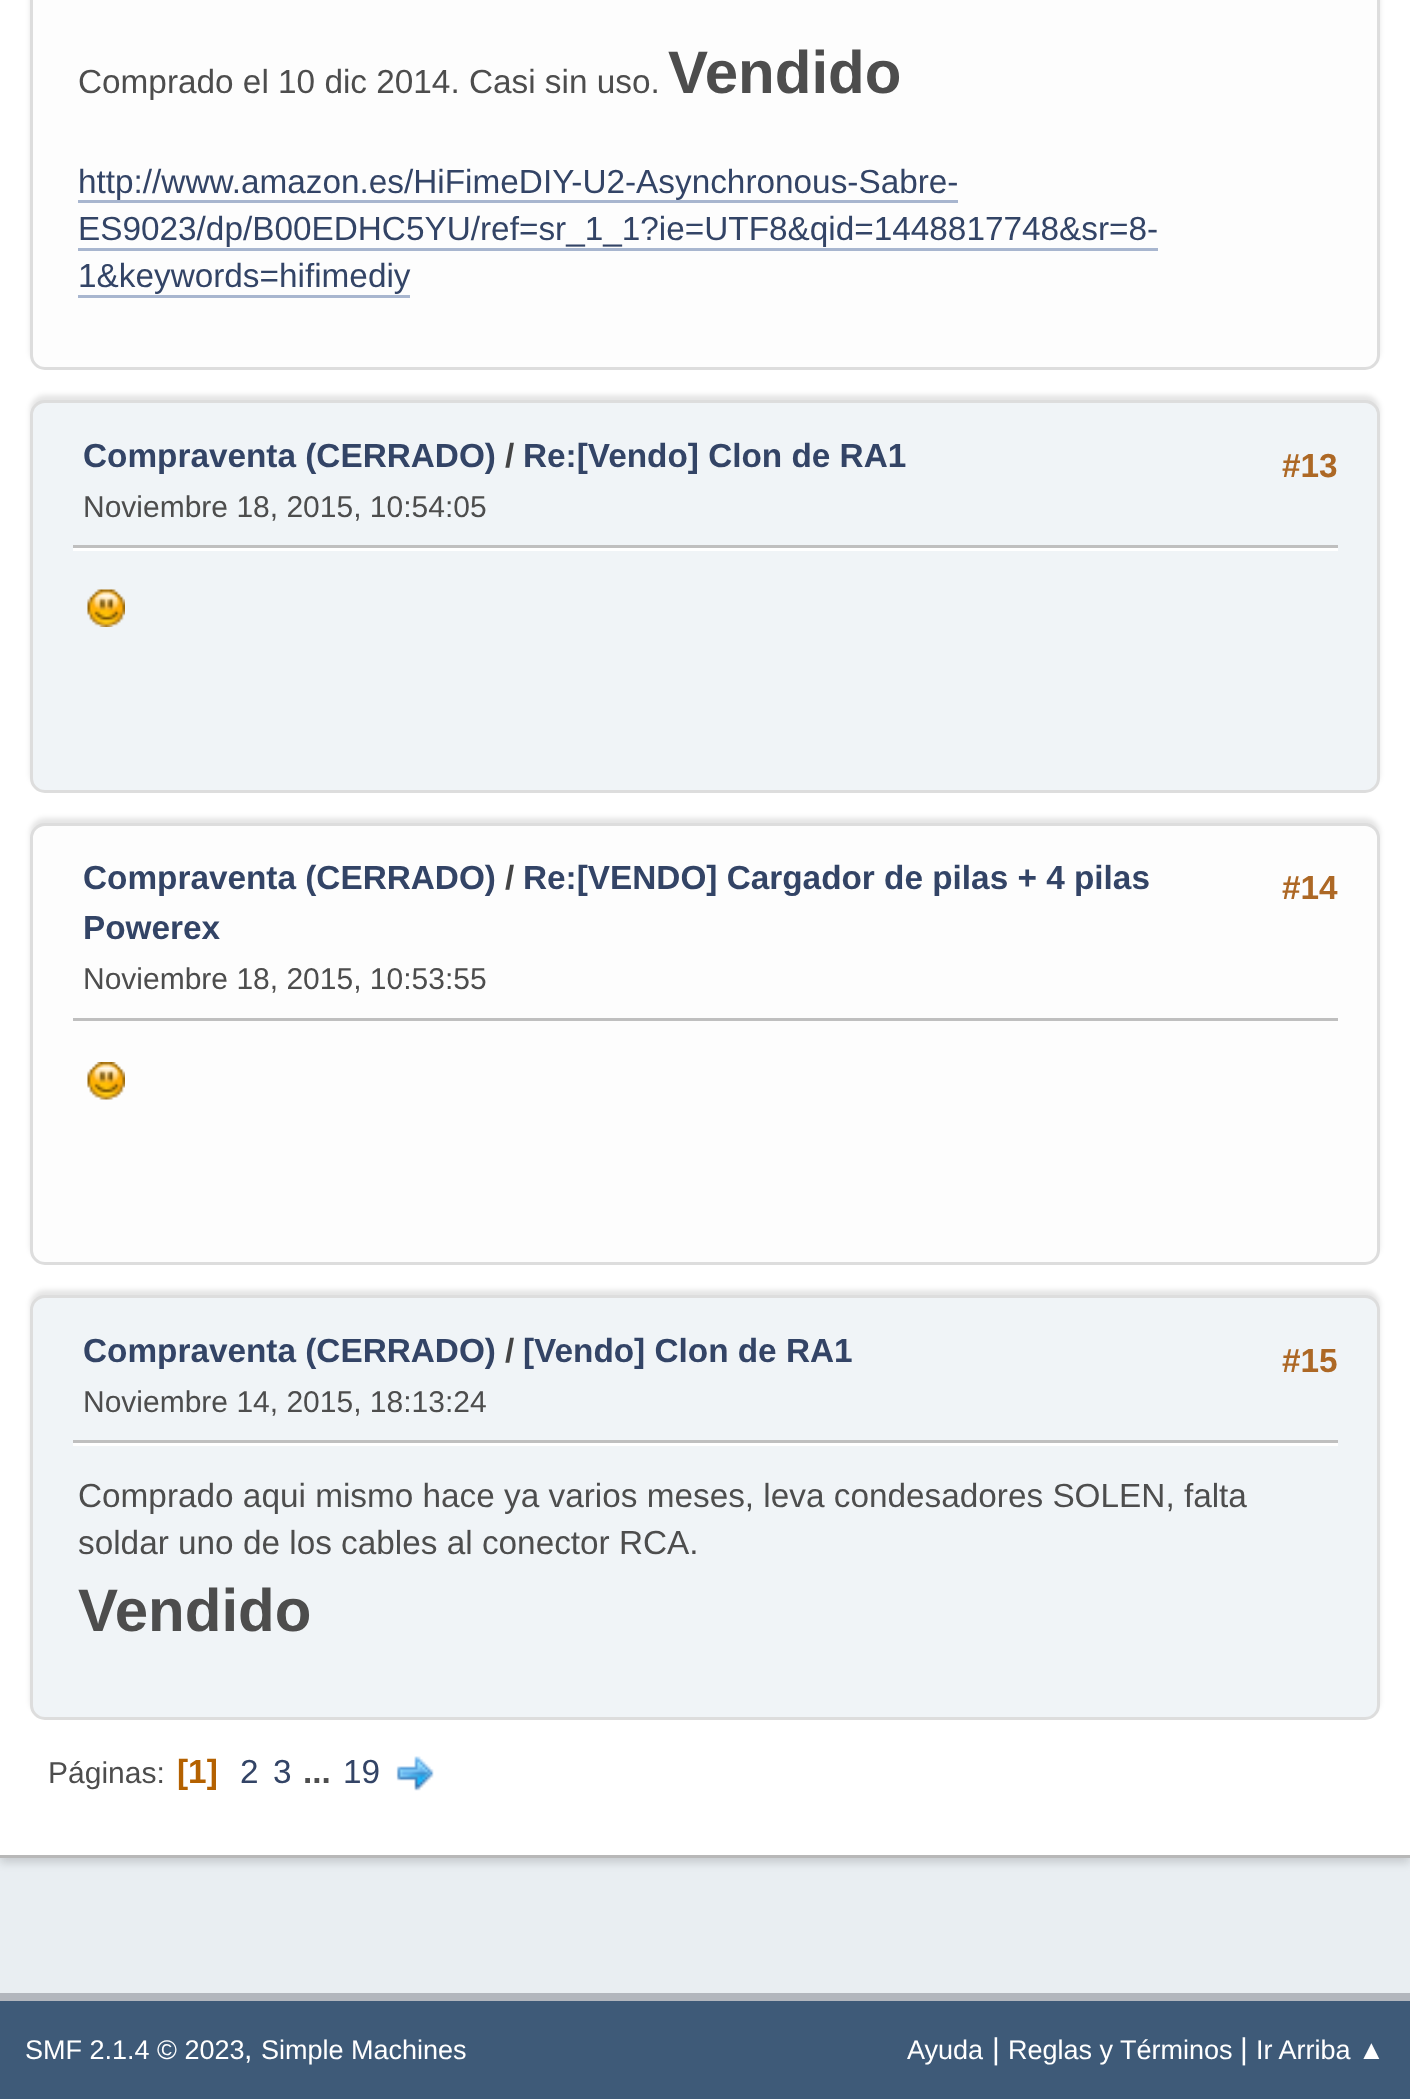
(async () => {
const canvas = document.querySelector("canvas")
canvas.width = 1410
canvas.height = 2099
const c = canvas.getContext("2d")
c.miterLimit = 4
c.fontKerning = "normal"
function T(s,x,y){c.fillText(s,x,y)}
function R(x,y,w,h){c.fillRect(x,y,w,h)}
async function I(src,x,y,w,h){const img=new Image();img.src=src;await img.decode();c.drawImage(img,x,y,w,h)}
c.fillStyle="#e9eef2"
R(0,0,1410,2099)
c.fillStyle="#00000024"
c.filter="blur(4px)"
c.beginPath()
c.rect(0,-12,1410,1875)
c.fill()
c.filter="none"
c.fillStyle="#fff"
R(0,0,1410,1855)
c.fillStyle="#b8b8b8"
R(0,1855,1410,3)
c.fillStyle="#0000001a"
c.filter="blur(2.5px)"
c.beginPath()
c.roundRect(30,-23,1350,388,15)
c.fill()
c.filter="none"
c.fillStyle="#fdfdfd"
c.beginPath()
c.roundRect(31.5,-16.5,1347,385,13.5)
c.fill()
c.strokeStyle="#ddd"
c.lineWidth=3
c.stroke()
c.font="33.35px Liberation Sans"
c.fillStyle="#4d4d4d"
T("Comprado el 10 dic 2014. Casi sin uso.",78,93)
c.font="bold 60px Liberation Sans"
T("Vendido",668,93)
c.font="33.35px Liberation Sans"
c.fillStyle="#346"
T("http://www.amazon.es/HiFimeDIY-U2-Asynchronous-Sabre-",78,193)
c.fillStyle="#a8b6cf"
R(78,200,880,3)
c.fillStyle="#346"
T("ES9023/dp/B00EDHC5YU/ref=sr_1_1?ie=UTF8&qid=1448817748&sr=8-",78,240)
c.fillStyle="#a8b6cf"
R(78,248,1080,3)
c.fillStyle="#346"
T("1&keywords=hifimediy",78,287)
c.fillStyle="#a8b6cf"
R(78,295,332,3)
c.fillStyle="#0000001a"
c.filter="blur(2.5px)"
c.beginPath()
c.roundRect(30,395,1350,393,15)
c.fill()
c.filter="none"
c.fillStyle="#f0f4f7"
c.beginPath()
c.roundRect(31.5,401.5,1347,390,13.5)
c.fill()
c.stroke()
c.font="bold 33.35px Liberation Sans"
c.fillStyle="#346"
T("Compraventa (CERRADO)",83,467)
c.fillStyle="#444"
T("/",505,467)
c.fillStyle="#346"
T("Re:[Vendo] Clon de RA1",523,467)
c.font="30px Liberation Sans"
c.fillStyle="#4d4d4d"
T("Noviembre 18, 2015, 10:54:05",83,517)
c.font="bold 33.35px Liberation Sans"
c.fillStyle="#ad6825"
T("#13",1282,477)
c.fillStyle="#fff"
R(73,548,1265,3)
c.fillStyle="#bfbfbf"
R(73,545,1265,3)
await I("1.png",87,589,38,38)
c.fillStyle="#0000001a"
c.filter="blur(2.5px)"
c.beginPath()
c.roundRect(30,818,1350,442,15)
c.fill()
c.filter="none"
c.fillStyle="#fdfdfd"
c.beginPath()
c.roundRect(31.5,824.5,1347,439,13.5)
c.fill()
c.stroke()
c.fillStyle="#346"
T("Compraventa (CERRADO)",83,889)
c.fillStyle="#444"
T("/",505,889)
c.fillStyle="#346"
T("Re:[VENDO] Cargador de pilas + 4 pilas",523,889)
T("Powerex",83,939)
c.font="30px Liberation Sans"
c.fillStyle="#4d4d4d"
T("Noviembre 18, 2015, 10:53:55",83,989)
c.font="bold 33.35px Liberation Sans"
c.fillStyle="#ad6825"
T("#14",1282,899)
c.fillStyle="#bfbfbf"
R(73,1018,1265,3)
await I("2.png",87,1062,38,38)
c.fillStyle="#0000001a"
c.filter="blur(2.5px)"
c.beginPath()
c.roundRect(30,1290,1350,425,15)
c.fill()
c.filter="none"
c.fillStyle="#f0f4f7"
c.beginPath()
c.roundRect(31.5,1296.5,1347,422,13.5)
c.fill()
c.stroke()
c.fillStyle="#346"
T("Compraventa (CERRADO)",83,1362)
c.fillStyle="#444"
T("/",505,1362)
c.fillStyle="#346"
T("[Vendo] Clon de RA1",523,1362)
c.font="30px Liberation Sans"
c.fillStyle="#4d4d4d"
T("Noviembre 14, 2015, 18:13:24",83,1412)
c.font="bold 33.35px Liberation Sans"
c.fillStyle="#ad6825"
T("#15",1282,1372)
c.fillStyle="#fff"
R(73,1443,1265,3)
c.fillStyle="#bfbfbf"
R(73,1440,1265,3)
c.font="33.35px Liberation Sans"
c.fillStyle="#4d4d4d"
T("Comprado aqui mismo hace ya varios meses, leva condesadores SOLEN, falta",78,1507)
T("soldar uno de los cables al conector RCA.",78,1554)
c.font="bold 60px Liberation Sans"
T("Vendido",78,1631)
c.font="30px Liberation Sans"
T("Páginas:",48,1783)
c.font="bold 33.35px Liberation Sans"
c.fillStyle="#b46100"
T("[1]",177,1783)
c.font="33.35px Liberation Sans"
c.fillStyle="#346"
T("2",240,1783)
T("3",273,1783)
c.font="bold 33.35px Liberation Sans"
c.fillStyle="#4d4d4d"
T("...",303,1783)
c.font="33.35px Liberation Sans"
c.fillStyle="#346"
T("19",343,1783)
await I("3.png",396,1756,38,35)
c.fillStyle="#3e5a78"
R(0,2001,1410,98)
c.fillStyle="#b2b6bd"
R(0,1993,1410,8)
c.font="27px Liberation Sans"
c.fillStyle="#fff"
T("SMF 2.1.4 © 2023",25,2059)
c.font="30px Liberation Sans"
T(",",244,2059)
c.font="27px Liberation Sans"
T("Simple Machines",261,2059)
T("Ayuda",907,2059)
c.font="30px Liberation Sans"
T("|",992,2059)
c.font="27px Liberation Sans"
T("Reglas y Términos",1008,2059)
c.font="30px Liberation Sans"
T("|",1240,2059)
c.font="27px Liberation Sans"
T("Ir Arriba ▲",1256,2059)
})()
